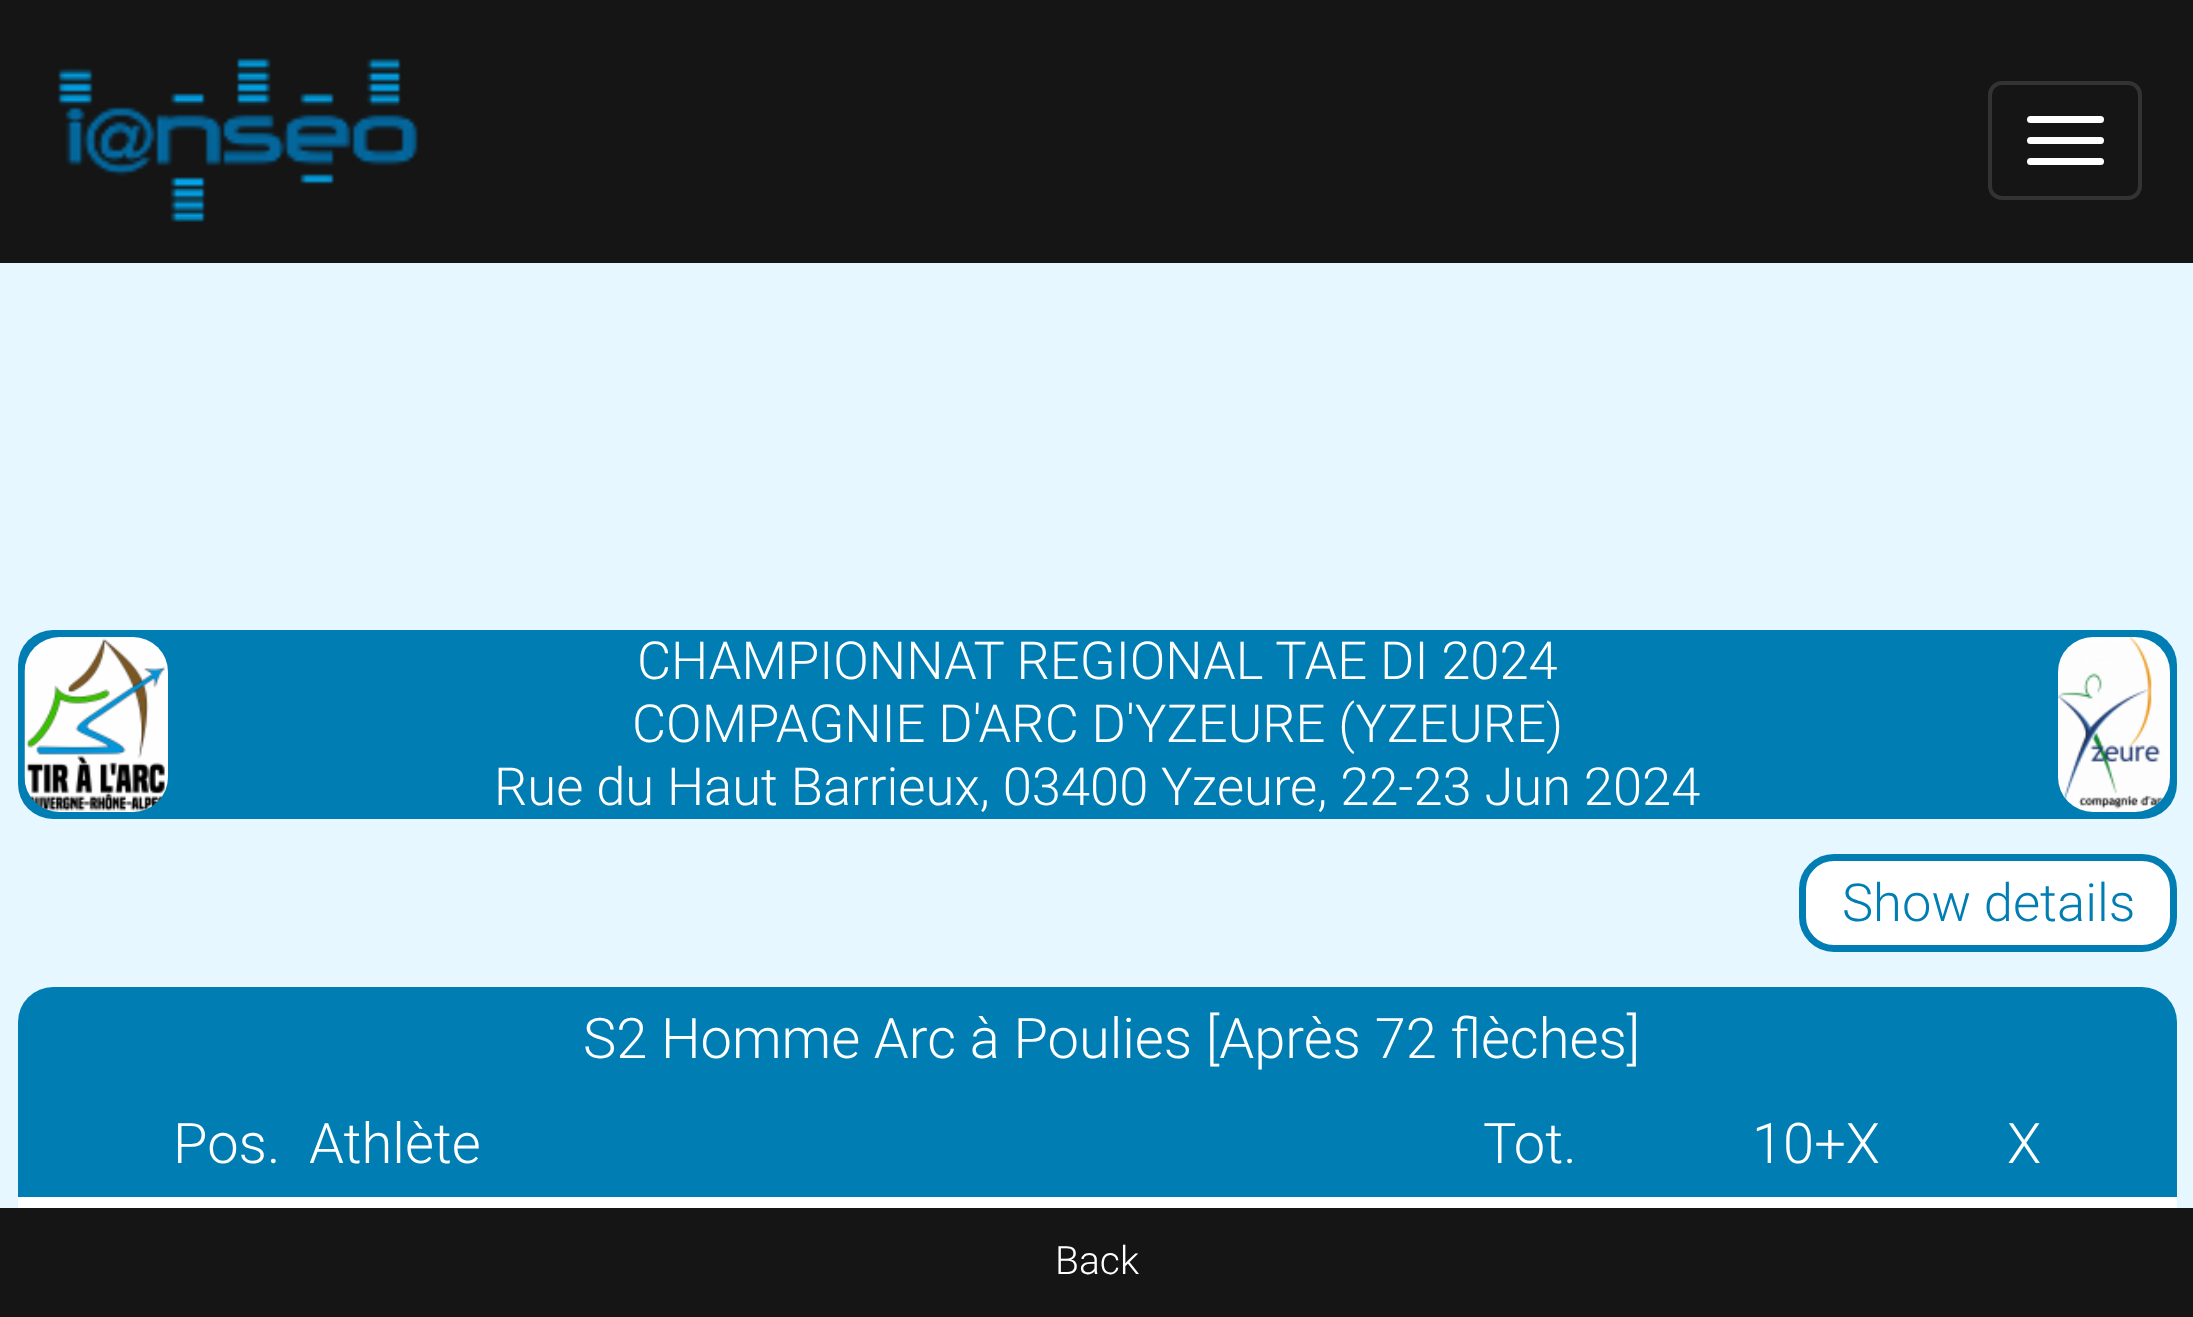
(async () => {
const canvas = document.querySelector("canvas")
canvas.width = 2193
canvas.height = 1317
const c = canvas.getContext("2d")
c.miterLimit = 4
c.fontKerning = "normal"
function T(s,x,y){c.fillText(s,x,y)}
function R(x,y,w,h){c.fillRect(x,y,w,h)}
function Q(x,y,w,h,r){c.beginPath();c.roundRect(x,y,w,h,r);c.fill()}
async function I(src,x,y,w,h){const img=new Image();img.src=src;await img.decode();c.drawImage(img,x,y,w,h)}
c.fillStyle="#e6f7ff"
R(0,0,2193,1317)
c.fillStyle="#151515"
R(0,0,2193,263)
await I("1.png",58,58,360,164)
c.beginPath()
c.roundRect(1990,83,150,115,12)
c.strokeStyle="#333"
c.lineWidth=4
c.stroke()
c.fillStyle="#fff"
Q(2027,116,77,7,3.5)
Q(2027,137,77,7,3.5)
Q(2027,158,77,7,3.5)
c.fillStyle="#007db3"
Q(18,630,2159,189,35)
await I("2.png",24,637,144,175)
c.font="300 52.5px Roboto"
c.fillStyle="#fff"
T("CHAMPIONNAT REGIONAL TAE DI 2024",637,679)
T("COMPAGNIE D'ARC D'YZEURE (YZEURE)",632,742)
T("Rue du Haut Barrieux, 03400 Yzeure, 22-23 Jun 2024",494,805)
await I("3.png",2058,637,112,175)
c.beginPath()
c.roundRect(1802.5,857.5,371,91,31.5)
c.fill()
c.strokeStyle="#007db3"
c.lineWidth=7
c.stroke()
c.fillStyle="#007db3"
T("Show details",1842,921)
c.fillStyle="#fff"
Q(18,987,2159,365,35)
c.fillStyle="#007db3"
c.beginPath()
c.roundRect(18,987,2159,105,[35,35,0,0])
c.fill()
c.font="300 56px Roboto"
c.fillStyle="#fff"
T("S2 Homme Arc à Poulies [Après 72 flèches]",583,1058)
c.fillStyle="#007db3"
R(18,1092,2159,105)
c.fillStyle="#fff"
T("Pos.",173,1163)
T("Athlète",309,1163)
T("Tot.",1483,1163)
T("10+X",1752,1163)
T("X",2007,1163)
c.fillStyle="#151515"
R(0,1208,2193,109)
c.font="300 39px Roboto"
c.fillStyle="#fff"
T("Back",1055,1274)
})()
